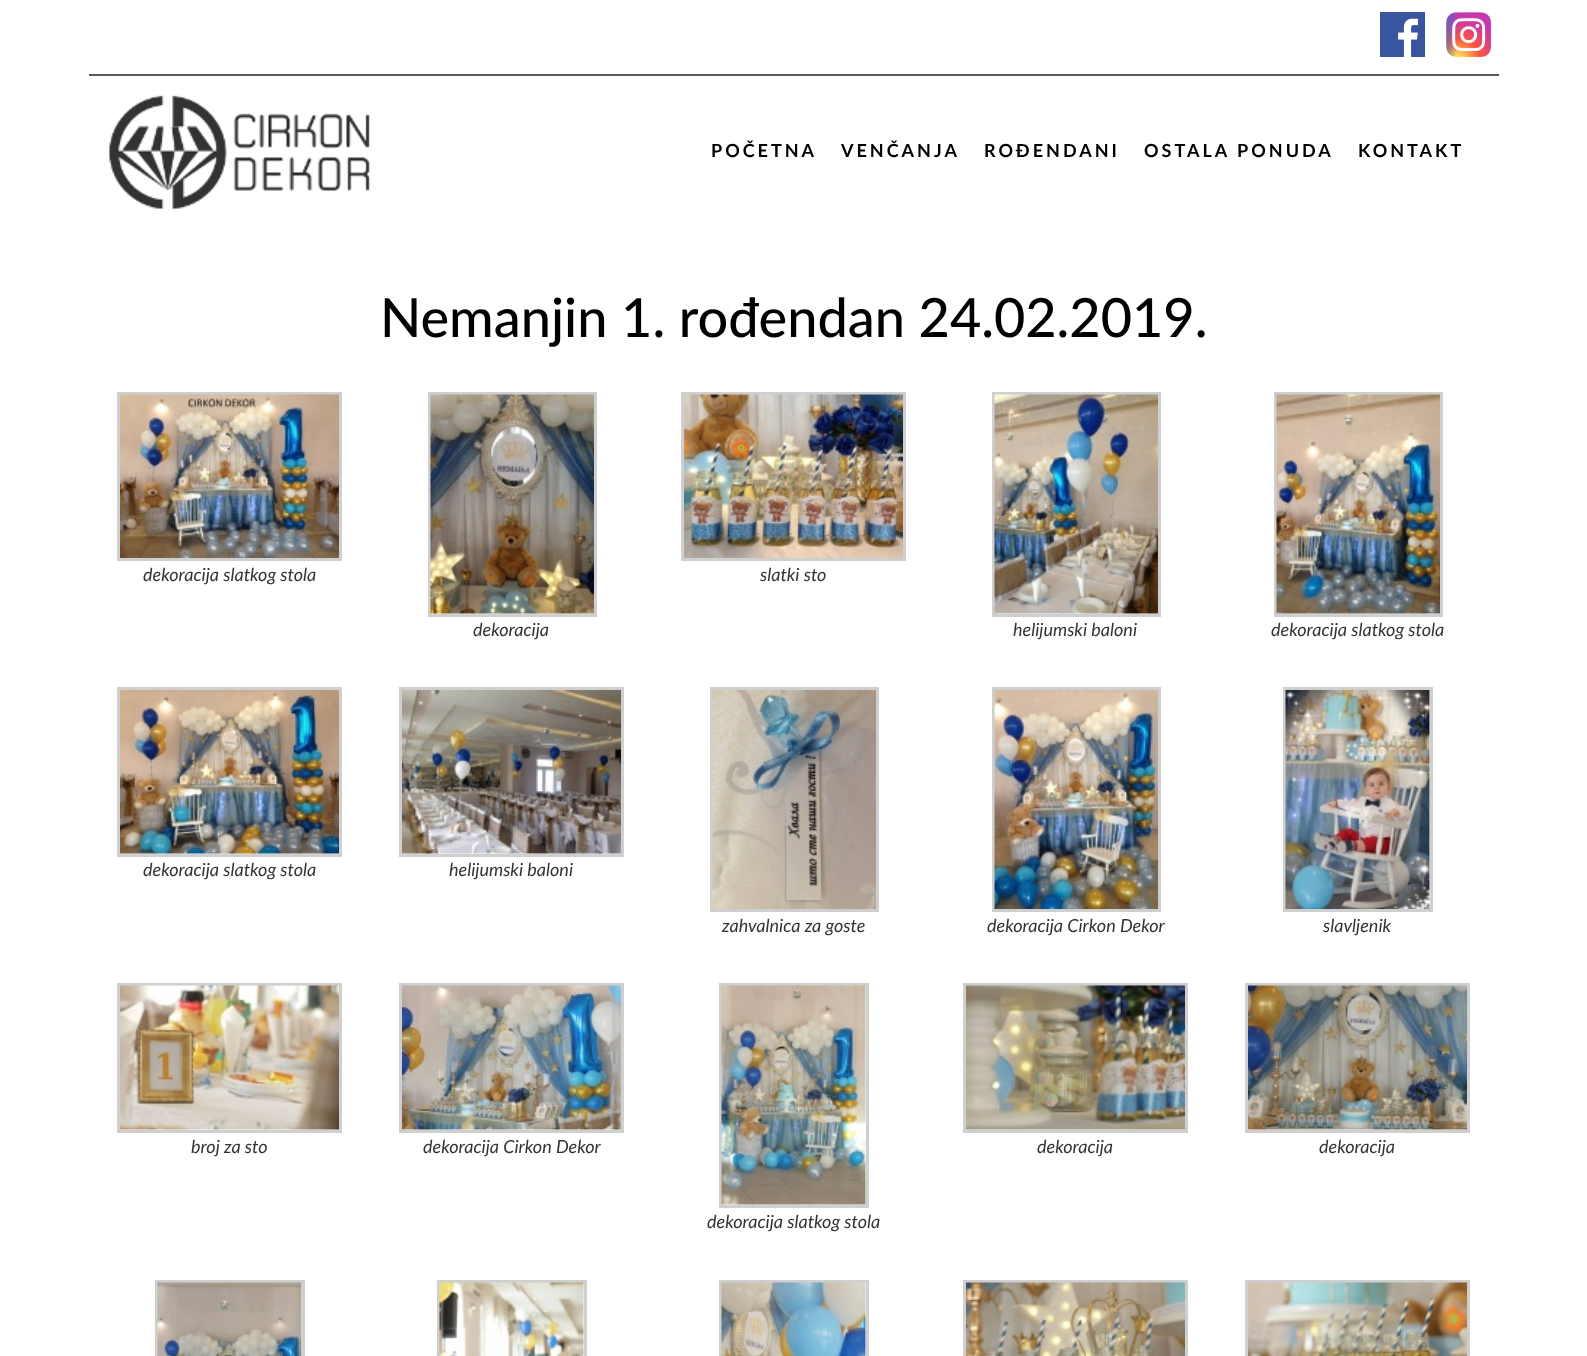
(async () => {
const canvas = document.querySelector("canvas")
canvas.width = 1587
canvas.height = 1356
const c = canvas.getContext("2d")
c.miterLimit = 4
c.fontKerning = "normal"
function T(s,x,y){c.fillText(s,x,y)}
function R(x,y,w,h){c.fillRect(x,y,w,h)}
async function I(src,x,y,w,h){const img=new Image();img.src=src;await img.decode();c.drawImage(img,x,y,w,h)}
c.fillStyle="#fff"
R(0,0,1587,1356)
c.fillStyle="#565a5a"
R(89,74,1410,2)
await I("1.png",1380,12,45,45)
await I("2.png",1446,12,45,45)
await I("3.png",108,95,263,115)
c.letterSpacing="3px"
c.font="bold 18px Lato"
c.fillStyle="#000"
T("POČETNA",711,157)
T("VENČANJA",841,157)
T("ROĐENDANI",984,157)
T("OSTALA PONUDA",1144,157)
T("KONTAKT",1358,157)
c.letterSpacing="0px"
c.font="500 54px Lato"
T("Nemanjin 1. rođendan 24.02.2019.",380,337)
c.strokeStyle="#cfcfcf"
c.lineWidth=3
c.strokeRect(118.5,393.5,222,166)
await I("4.png",120,394,219,164)
c.font="italic 18px Lato"
c.fillStyle="#333"
T("dekoracija slatkog stola",143,581)
c.strokeRect(682.5,393.5,222,166)
await I("5.png",684,394,219,164)
T("slatki sto",760,581)
c.strokeRect(429.5,393.5,166,222)
await I("6.png",430,394,164,220)
T("dekoracija",473,636)
c.strokeRect(993.5,393.5,166,222)
await I("7.png",994,394,164,220)
T("helijumski baloni",1013,636)
c.strokeRect(1275.5,393.5,166,222)
await I("8.png",1276,394,164,220)
T("dekoracija slatkog stola",1271,636)
c.strokeRect(118.5,688.5,222,167)
await I("9.png",120,690,219,164)
T("dekoracija slatkog stola",143,876)
c.strokeRect(400.5,688.5,222,167)
await I("10.png",402,690,219,164)
T("helijumski baloni",449,876)
c.strokeRect(711.5,688.5,166,222)
await I("11.png",712,690,164,219)
T("zahvalnica za goste",722,932)
c.strokeRect(993.5,688.5,166,222)
await I("12.png",994,690,164,219)
T("dekoracija Cirkon Dekor",987,932)
c.strokeRect(1284.5,688.5,147,222)
await I("13.png",1285,690,145,219)
T("slavljenik",1323,932)
c.strokeRect(118.5,984.5,222,147)
await I("14.png",120,985,219,145)
T("broj za sto",191,1153)
c.strokeRect(400.5,984.5,222,147)
await I("15.png",402,985,219,145)
T("dekoracija Cirkon Dekor",423,1153)
c.strokeRect(964.5,984.5,222,147)
await I("16.png",966,985,219,145)
T("dekoracija",1037,1153)
c.strokeRect(1246.5,984.5,222,147)
await I("17.png",1248,985,219,145)
T("dekoracija",1319,1153)
c.strokeRect(720.5,984.5,147,222)
await I("18.png",721,985,145,220)
T("dekoracija slatkog stola",707,1228)
c.strokeRect(156.5,1281.5,147,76)
await I("19.png",157,1282,145,74)
c.strokeRect(438.5,1281.5,147,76)
await I("20.png",439,1282,145,74)
c.strokeRect(720.5,1281.5,147,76)
await I("21.png",721,1282,145,74)
c.strokeRect(964.5,1281.5,222,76)
await I("22.png",966,1282,219,74)
c.strokeRect(1246.5,1281.5,222,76)
await I("23.png",1248,1282,219,74)
})()
